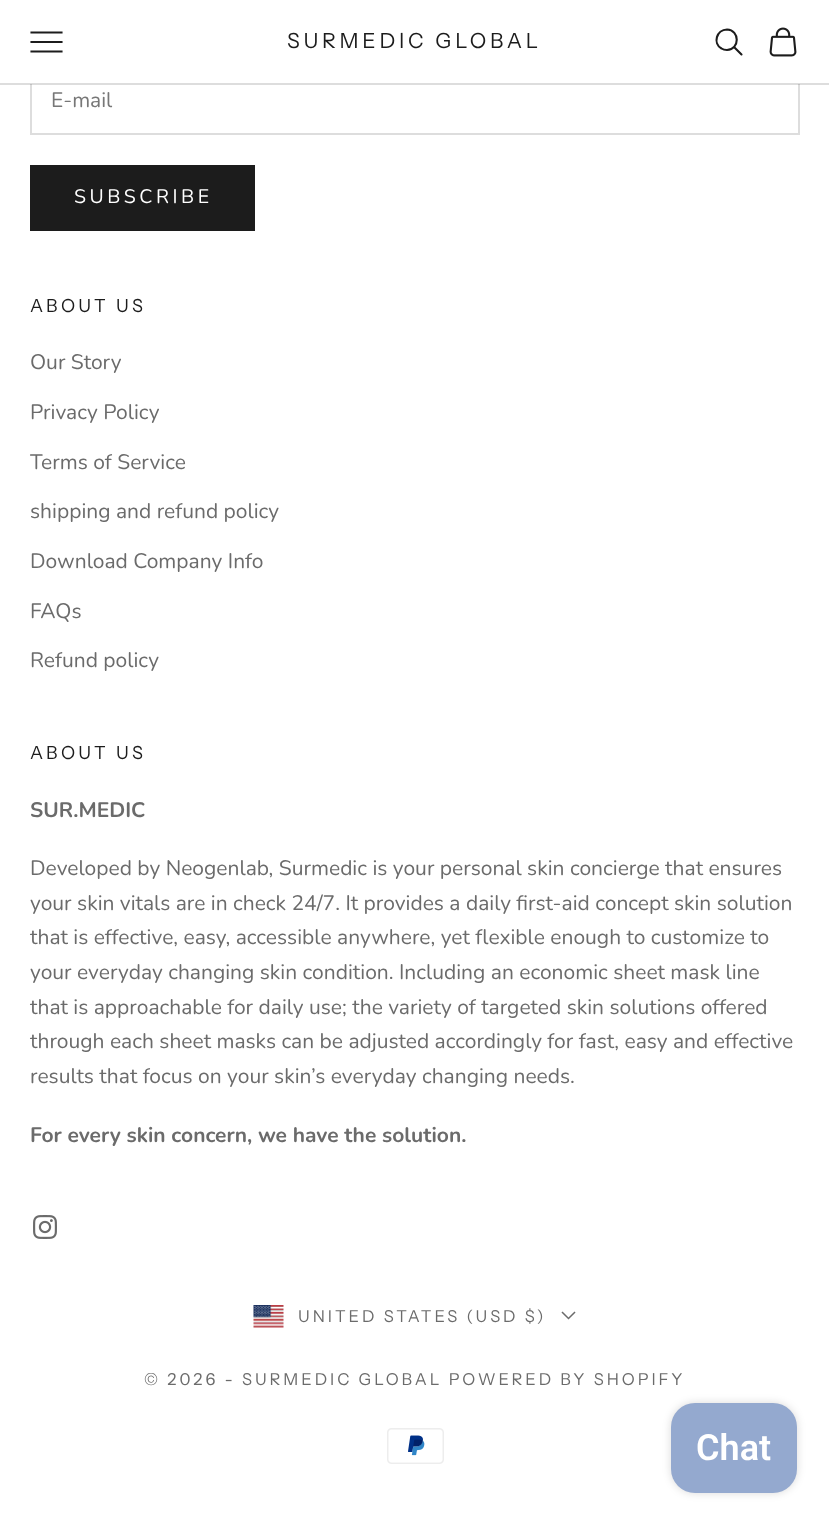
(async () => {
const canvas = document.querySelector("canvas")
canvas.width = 829
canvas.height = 1524
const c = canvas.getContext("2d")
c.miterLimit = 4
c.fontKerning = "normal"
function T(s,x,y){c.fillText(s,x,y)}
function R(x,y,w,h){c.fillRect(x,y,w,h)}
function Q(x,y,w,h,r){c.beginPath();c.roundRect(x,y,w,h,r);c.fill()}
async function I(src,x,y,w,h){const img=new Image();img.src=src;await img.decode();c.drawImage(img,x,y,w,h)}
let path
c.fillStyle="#fff"
R(0,0,829,1524)
c.strokeStyle="#ddd"
c.lineWidth=2
c.strokeRect(31,67,768,67)
R(30,66,770,18)
c.fillStyle="#1c1c1c26"
R(0,83,829,2)
path = new Path2D("M31.5 51.5h30m-30-9.5h30m-30-9.5h30")
c.strokeStyle="#1c1c1c"
c.lineWidth=2.1
c.lineCap="square"
c.stroke(path)
c.letterSpacing="3.75px"
c.font="21px Instrument Sans"
c.fillStyle="#1c1c1c"
T("SURMEDIC GLOBAL",287,48)
path = new Path2D("M727 29.5c-10.5 0-14.5 14-5.5 19c1.5 1 3.5 1.5 5.5 1.5c13-.5 13-20 0-20.5z")
c.lineCap="butt"
c.stroke(path)
path = new Path2D("M734.5 47.5l7 7")
c.lineCap="round"
c.stroke(path)
await I("1.png",769,27,28,30)
c.letterSpacing="0px"
c.font="21px Nunito"
c.fillStyle="#777"
T("E-mail",51,107)
c.fillStyle="#1c1c1c"
c.beginPath()
c.rect(31,166,223,64)
c.fill()
c.lineWidth=2
c.stroke()
c.letterSpacing="3.5px"
c.font="19.5px Nunito"
c.fillStyle="#fff"
T("SUBSCRIBE",74,203)
c.letterSpacing="3.25px"
c.font="18px Instrument Sans"
c.fillStyle="#1c1c1c"
T("ABOUT US",30,312)
c.letterSpacing="0px"
c.font="21px Nunito"
c.fillStyle="#6b6b6b"
T("Our Story",30,369)
T("Privacy Policy",30,419)
T("Terms of Service",30,469)
T("shipping and refund policy",30,518)
T("Download Company Info",30,568)
T("FAQs",30,618)
T("Refund policy",30,667)
c.letterSpacing="3.25px"
c.font="18px Instrument Sans"
c.fillStyle="#1c1c1c"
T("ABOUT US",30,759)
c.letterSpacing="0px"
c.font="bold 21px Nunito"
c.fillStyle="#6b6b6b"
T("SUR.MEDIC",30,817)
c.font="21px Nunito"
T("Developed by Neogenlab, Surmedic is your personal skin concierge that ensures",30,875)
T("your skin vitals are in check 24/7. It provides a daily first-aid concept skin solution",30,910)
T("that is effective, easy, accessible anywhere, yet flexible enough to customize to",30,944)
T("your everyday changing skin condition. Including an economic sheet mask line",30,979)
T("that is approachable for daily use; the variety of targeted skin solutions offered",30,1014)
T("through each sheet masks can be adjusted accordingly for fast, easy and effective",30,1048)
T("results that focus on your skin’s everyday changing needs.",30,1083)
c.font="bold 21px Nunito"
T("For every skin concern, we have the solution.",30,1142)
await I("2.png",33,1215,24,24)
await I("3.png",253,1305,31,23)
c.letterSpacing="2.95px"
c.font="16.5px Instrument Sans"
T("UNITED STATES (USD $)",298,1322)
path = new Path2D("M562.5 1312.5l6 6l6-6")
c.strokeStyle="#6b6b6b"
c.lineWidth=1.5
c.lineCap="square"
c.stroke(path)
T("© 2026 - SURMEDIC GLOBAL POWERED BY SHOPIFY",144,1385)
await I("4.png",387,1428,57,36)
c.fillStyle="#00000026"
c.filter="blur(4px)"
c.beginPath()
c.roundRect(671,1403,126,90,24)
c.fill()
c.filter="none"
c.fillStyle="#94a9cf"
Q(671,1403,126,90,24)
c.letterSpacing="0px"
c.font="600 36px Roboto"
c.fillStyle="#fff"
T("Chat",696,1460)
})()
